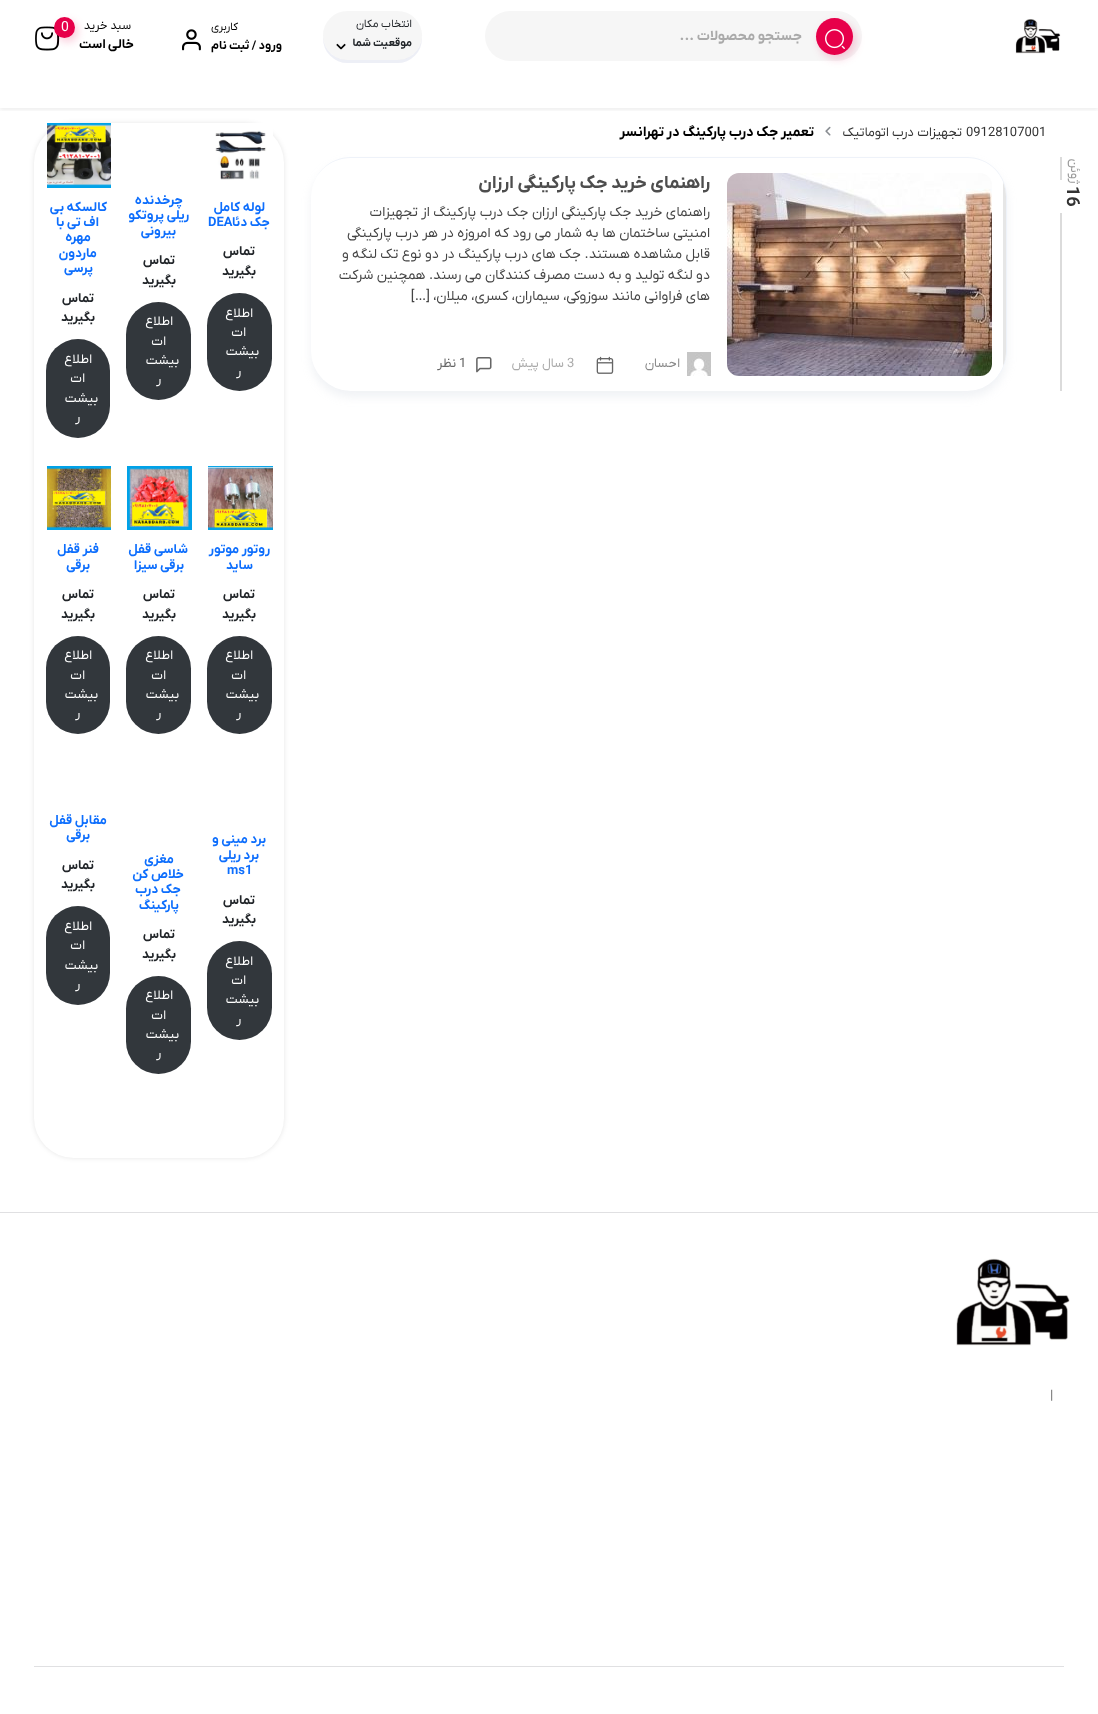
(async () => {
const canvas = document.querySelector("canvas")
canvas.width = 1098
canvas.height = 1714
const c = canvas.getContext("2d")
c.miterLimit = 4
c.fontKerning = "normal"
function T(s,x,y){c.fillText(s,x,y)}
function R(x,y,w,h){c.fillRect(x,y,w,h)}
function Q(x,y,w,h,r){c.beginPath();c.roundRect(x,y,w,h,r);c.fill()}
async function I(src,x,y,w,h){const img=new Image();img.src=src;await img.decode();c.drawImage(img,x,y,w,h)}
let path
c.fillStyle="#fff"
R(0,0,1098,1714)
c.save()
c.beginPath()
c.rect(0,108,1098,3)
c.clip()
c.fillStyle="#00000012"
c.filter="blur(2px)"
c.beginPath()
c.rect(0,2,1098,108)
c.fill()
c.filter="none"
c.restore()
await I("1.png",1015,19,46,35)
c.fillStyle="#f6f6f6"
Q(485,11,377,50,25)
c.fillStyle="#e7004a33"
c.filter="blur(4.5px)"
c.beginPath()
c.roundRect(819,22,37,37,18.5)
c.fill()
c.filter="none"
c.fillStyle="#e7004a"
c.beginPath()
c.arc(834.5,36.5,18.5,0,7)
c.fill()
await I("2.png",825,29,20,20)
c.direction="rtl"
c.font="bold 14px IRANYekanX"
c.fillStyle="#aaa"
T("جستجو محصولات ...",802,40)
c.save()
path = new Path2D("M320 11h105v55h-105zm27.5 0h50c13.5 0 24.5 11 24.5 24.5c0 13.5-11 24.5-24.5 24.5h-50c-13.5 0-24.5-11-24.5-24.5c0-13.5 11-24.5 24.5-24.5z")
c.clip(path,"evenodd")
c.fillStyle="#02227c12"
c.filter="blur(0.5px)"
c.beginPath()
c.roundRect(323,14,99,49,24.5)
c.fill()
c.filter="none"
c.restore()
c.fillStyle="#c0c0c024"
Q(323,11,99,49,24.5)
c.font="11px IRANYekanX"
c.fillStyle="#212529"
T("انتخاب مکان",412,27)
c.font="bold 11px IRANYekanX"
T("موقعیت شما",412,46)
await I("3.png",336,43,10,7)
c.font="11px IRANYekanX"
c.fillStyle="#000"
T("کاربری",238,30)
c.font="bold 12px IRANYekanX"
T("ورود / ثبت نام",282,49)
await I("4.png",182,29,19,22)
c.font="12px IRANYekanX"
T("سبد خرید",131,29)
c.letterSpacing="0.5px"
c.wordSpacing="-1px"
c.font="bold 13px IRANYekanX"
T("خالی است",134,48)
await I("5.png",35,26,25,25)
c.fillStyle="#e7004a33"
c.filter="blur(4.5px)"
c.beginPath()
c.roundRect(57,21,21,21,10.5)
c.fill()
c.filter="none"
c.fillStyle="#e7004a"
c.beginPath()
c.arc(64.5,27.5,10.5,0,7)
c.fill()
c.letterSpacing="0px"
c.wordSpacing="0px"
c.direction="ltr"
c.font="14px IRANYekanX"
c.fillStyle="#fff"
T("0",61,31)
c.font="13px IRANYekanX"
c.fillStyle="#333"
T("09128107001",966,136)
c.direction="rtl"
T("تجهیزات درب اتوماتیک",962,136)
await I("6.png",825,126,6,10)
c.font="bold 14px IRANYekanX"
c.fillStyle="#000"
T("تعمیر جک درب پارکینگ در تهرانسر",814,136)
c.fillStyle="#dbdbdb"
R(1060,157,2,234)
c.fillStyle="#fff"
Q(1035,180,54,33,6)
c.direction="ltr"
c.font="bold 18px IRANYekanX"
c.fillStyle="#333"
c.save()
c.translate(1067,186)
c.rotate(90 * Math.PI / 180)
c.fillText("16",0,0)
c.restore()
c.direction="rtl"
c.font="13px IRANYekanX"
c.fillStyle="#999"
c.save()
c.translate(1071,184)
c.rotate(90 * Math.PI / 180)
c.fillText("ژوئن",0,0)
c.restore()
c.fillStyle="#b2bdce33"
c.filter="blur(5px)"
c.beginPath()
c.roundRect(311,163,696,234,40)
c.fill()
c.filter="none"
c.fillStyle="#fff"
Q(311,157,696,234,40)
c.fillStyle="#eef2f9"
path = new Path2D("M351 157h616c22 0 40 18 40 40v154c0 22-18 40-40 40h-616c-22 0-40-18-40-40v-154c0-22 18-40 40-40zm0 1h616c22 0 39 17 39 39v154c0 22-17 40-39 40h-616c-22 0-40-18-40-40v-154c0-22 18-39 40-39z")
c.fill(path,"evenodd")
c.fillStyle="#e6e6e6"
path = new Path2D("M1006 351v-154c0-5-1-10-3-15v184c2-4 3-10 3-15z")
c.fill(path)
await I("7.png",727,173,265,203)
c.font="bold 18px IRANYekanX"
c.fillStyle="#4d4d4d"
T("راهنمای خرید جک پارکینگی ارزان",710,188)
c.font="14px IRANYekanX"
c.fillStyle="#444"
T("راهنمای خرید جک پارکینگی ارزان جک درب پارکینگ از تجهیزات",710,216)
T("امنیتی ساختمان ها به شمار می رود که امروزه در هر درب پارکینگی",710,237)
T("قابل مشاهده هستند. جک های درب پارکینگ در دو نوع تک لنگه و",710,258)
T("دو لنگه تولید و به دست مصرف کنندگان می رسند. همچنین شرکت",710,279)
T("های فراوانی مانند سوزوکی، سیماران، کسری، میلان، […]",710,300)
await I("8.png",687,352,24,24)
c.font="13px IRANYekanX"
c.fillStyle="#888"
T("احسان",680,367)
await I("9.png",596,356,18,18)
c.direction="ltr"
c.fillStyle="#aaa"
T("3",567,367)
c.direction="rtl"
T("سال پیش",564,367)
await I("10.png",476,357,16,16)
c.direction="ltr"
c.fillStyle="#666"
T("1",459,367)
c.direction="rtl"
T("نظر",456,367)
c.fillStyle="#0000001a"
c.filter="blur(2.5px)"
c.beginPath()
c.roundRect(34,123,250,1035,40)
c.fill()
c.filter="none"
c.fillStyle="#fff"
Q(34,123,250,1035,40)
await I("11.png",215,123,58,57)
c.font="bold 13px IRANYekanX"
c.fillStyle="#0d6efd"
T("لوله کامل",265,211)
T("جک دئا",270,226)
c.direction="ltr"
T("DEA",208,226)
c.direction="rtl"
c.fillStyle="#212529"
T("تماس",255,255)
T("بگیرید",256,275)
c.fillStyle="#32373c"
Q(207,293,65,98,32.5)
c.font="13px IRANYekanX"
c.fillStyle="#fff"
T("اطلاع",253,317)
T("ات",246,336)
T("بیشت",259,355)
T("ر",241,375)
c.font="bold 13px IRANYekanX"
c.fillStyle="#0d6efd"
T("چرخدنده",183,204)
T("ریلی پروتکو",189,219)
T("بیرونی",176,235)
c.fillStyle="#212529"
T("تماس",175,264)
T("بگیرید",176,284)
c.fillStyle="#32373c"
Q(126,302,65,98,32.5)
c.font="13px IRANYekanX"
c.fillStyle="#fff"
T("اطلاع",173,325)
T("ات",166,345)
T("بیشت",179,364)
T("ر",161,383)
await I("12.png",47,123,64,65)
c.font="bold 13px IRANYekanX"
c.fillStyle="#0d6efd"
T("کالسکه بی",107,211)
T("اف تی با",99,226)
T("مهره",91,241)
T("ماردون",97,257)
T("پرسی",93,272)
c.fillStyle="#212529"
T("تماس",94,302)
T("بگیرید",95,321)
c.fillStyle="#32373c"
Q(46,339,64,99,32)
c.font="13px IRANYekanX"
c.fillStyle="#fff"
T("اطلاع",92,363)
T("ات",85,382)
T("بیشت",98,402)
T("ر",80,421)
await I("13.png",208,466,65,64)
c.font="bold 13px IRANYekanX"
c.fillStyle="#0d6efd"
T("روتور موتور",270,553)
T("ساید",253,569)
c.fillStyle="#212529"
T("تماس",255,598)
T("بگیرید",256,618)
c.fillStyle="#32373c"
Q(207,636,65,98,32.5)
c.font="13px IRANYekanX"
c.fillStyle="#fff"
T("اطلاع",253,659)
T("ات",246,679)
T("بیشت",259,698)
T("ر",241,717)
await I("14.png",127,466,65,64)
c.font="bold 13px IRANYekanX"
c.fillStyle="#0d6efd"
T("شاسی قفل",188,553)
T("برقی سیزا",184,569)
c.fillStyle="#212529"
T("تماس",175,598)
T("بگیرید",176,618)
c.fillStyle="#32373c"
Q(126,636,65,98,32.5)
c.font="13px IRANYekanX"
c.fillStyle="#fff"
T("اطلاع",173,659)
T("ات",166,679)
T("بیشت",179,698)
T("ر",161,717)
await I("15.png",47,466,64,64)
c.font="bold 13px IRANYekanX"
c.fillStyle="#0d6efd"
T("فنر قفل",99,553)
T("برقی",90,569)
c.fillStyle="#212529"
T("تماس",94,598)
T("بگیرید",95,618)
c.fillStyle="#32373c"
Q(46,636,64,98,32)
c.font="13px IRANYekanX"
c.fillStyle="#fff"
T("اطلاع",92,659)
T("ات",85,679)
T("بیشت",98,698)
T("ر",80,717)
c.font="bold 13px IRANYekanX"
c.fillStyle="#0d6efd"
T("برد مینی و",266,843)
T("برد ریلی",259,859)
c.direction="ltr"
T("ms1",227,874)
c.direction="rtl"
c.fillStyle="#212529"
T("تماس",255,904)
T("بگیرید",256,923)
c.fillStyle="#32373c"
Q(207,941,65,99,32.5)
c.font="13px IRANYekanX"
c.fillStyle="#fff"
T("اطلاع",253,965)
T("ات",246,984)
T("بیشت",259,1003)
T("ر",241,1023)
c.font="bold 13px IRANYekanX"
c.fillStyle="#0d6efd"
T("مغزی",174,863)
T("خلاص کن",184,878)
T("جک درب",181,893)
T("پارکینگ",179,909)
c.fillStyle="#212529"
T("تماس",175,938)
T("بگیرید",176,958)
c.fillStyle="#32373c"
Q(126,976,65,98,32.5)
c.font="13px IRANYekanX"
c.fillStyle="#fff"
T("اطلاع",173,999)
T("ات",166,1019)
T("بیشت",179,1038)
T("ر",161,1057)
c.font="bold 13px IRANYekanX"
c.fillStyle="#0d6efd"
T("مقابل قفل",107,824)
T("برقی",90,839)
c.fillStyle="#212529"
T("تماس",94,869)
T("بگیرید",95,888)
c.fillStyle="#32373c"
Q(46,906,64,99,32)
c.font="13px IRANYekanX"
c.fillStyle="#fff"
T("اطلاع",92,930)
T("ات",85,949)
T("بیشت",98,969)
T("ر",80,988)
c.fillStyle="#e0e0e2"
R(0,1212,1098,1)
await I("16.png",956,1258,114,88)
c.direction="ltr"
c.font="bold 13px IRANYekanX"
c.fillStyle="#7d7d7d"
T("|",1050,1399)
c.fillStyle="#e0e0e2"
R(34,1666,1030,1)
})()
